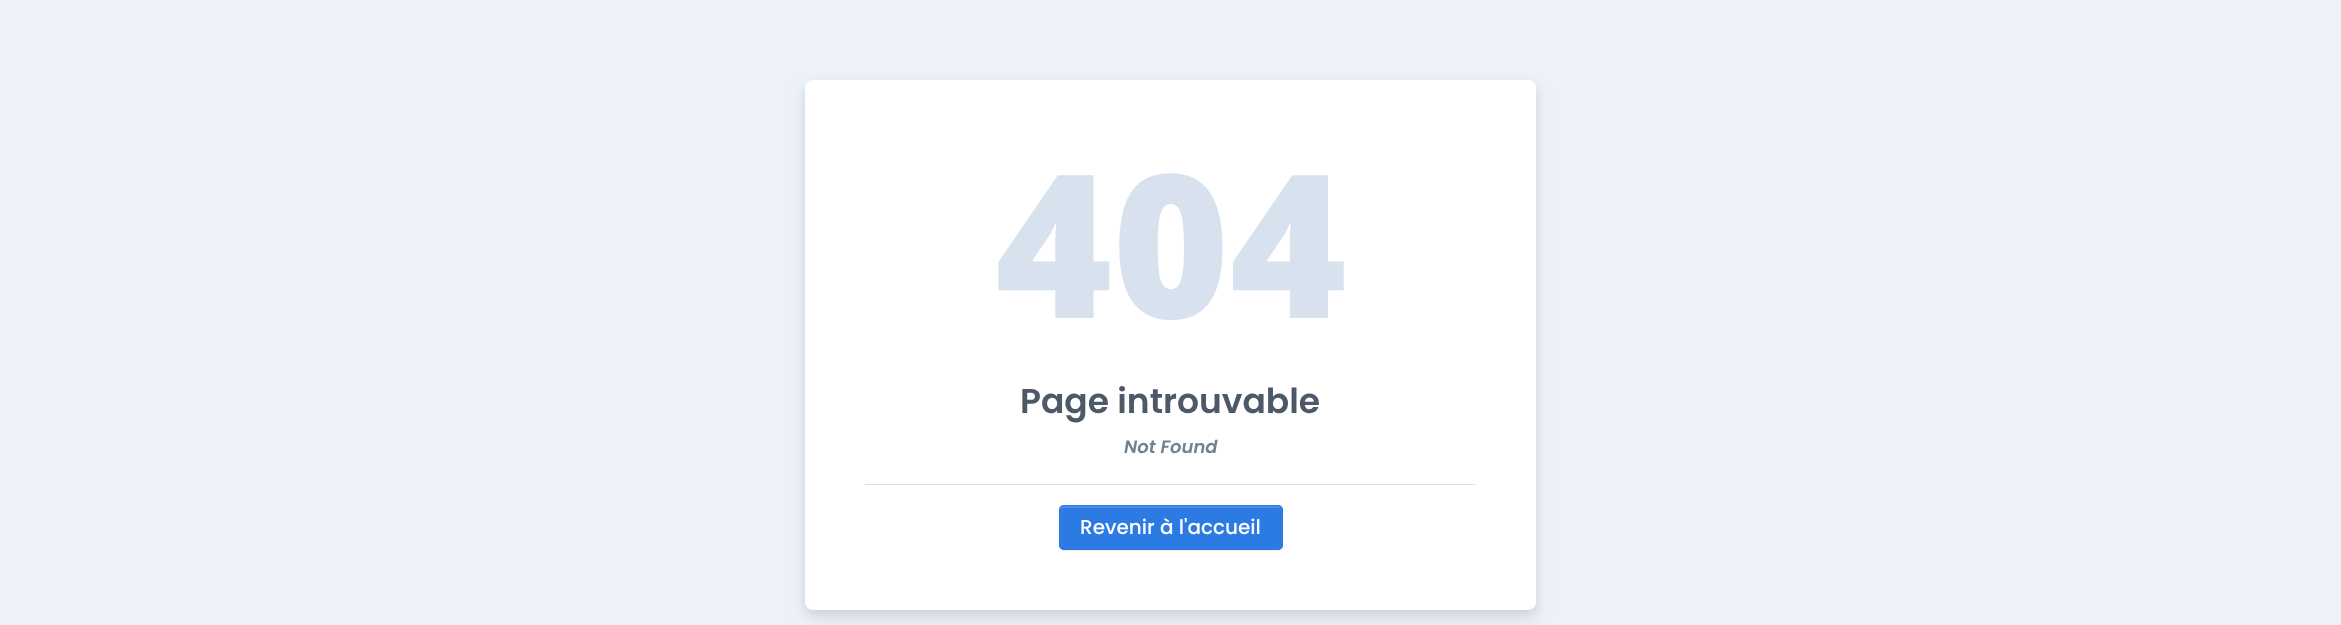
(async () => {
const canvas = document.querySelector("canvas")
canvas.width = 2341
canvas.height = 625
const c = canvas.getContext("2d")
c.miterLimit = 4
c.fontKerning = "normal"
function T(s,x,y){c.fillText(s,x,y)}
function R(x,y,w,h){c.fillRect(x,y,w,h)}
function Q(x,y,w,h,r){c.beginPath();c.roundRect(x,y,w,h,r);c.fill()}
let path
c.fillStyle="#edf2f9"
R(0,0,2341,625)
c.fillStyle="#00000012"
c.filter="blur(4px)"
c.beginPath()
c.roundRect(805,84,731,530,8)
c.fill()
c.filter="none"
c.fillStyle="#4145581a"
c.filter="blur(9px)"
c.beginPath()
c.roundRect(805,89,731,530,8)
c.fill()
c.filter="none"
c.fillStyle="#fff"
Q(805,80,731,530,8)
c.font="800 200px Open Sans"
c.fillStyle="#d8e2ef"
T("404",995,318)
c.font="600 34.5px Poppins"
c.fillStyle="#4d5969"
T("Page introuvable",1020,413)
c.font="italic 600 18px Poppins"
c.fillStyle="#748194"
T("Not Found",1124,453)
c.fillStyle="#d8e2ef"
R(865,484,611,1)
c.fillStyle="#00000012"
c.filter="blur(0.5px)"
c.beginPath()
c.roundRect(1059,506,224,45,5)
c.fill()
c.filter="none"
c.fillStyle="#2c7be5"
Q(1059,505,224,45,5)
c.fillStyle="#4c8fe9"
path = new Path2D("M1064 508h214c2 0 3 1 3 3c0-3-1-5-4-5h-213c-3 0-4 2-4 5c0-2 2-3 4-3z")
c.fill(path)
c.beginPath()
c.roundRect(1059.5,505.5,223,44,4.5)
c.strokeStyle="#2c7be5"
c.stroke()
c.font="500 20px Poppins"
c.fillStyle="#fff"
T("Revenir à l'accueil",1080,534)
})()
